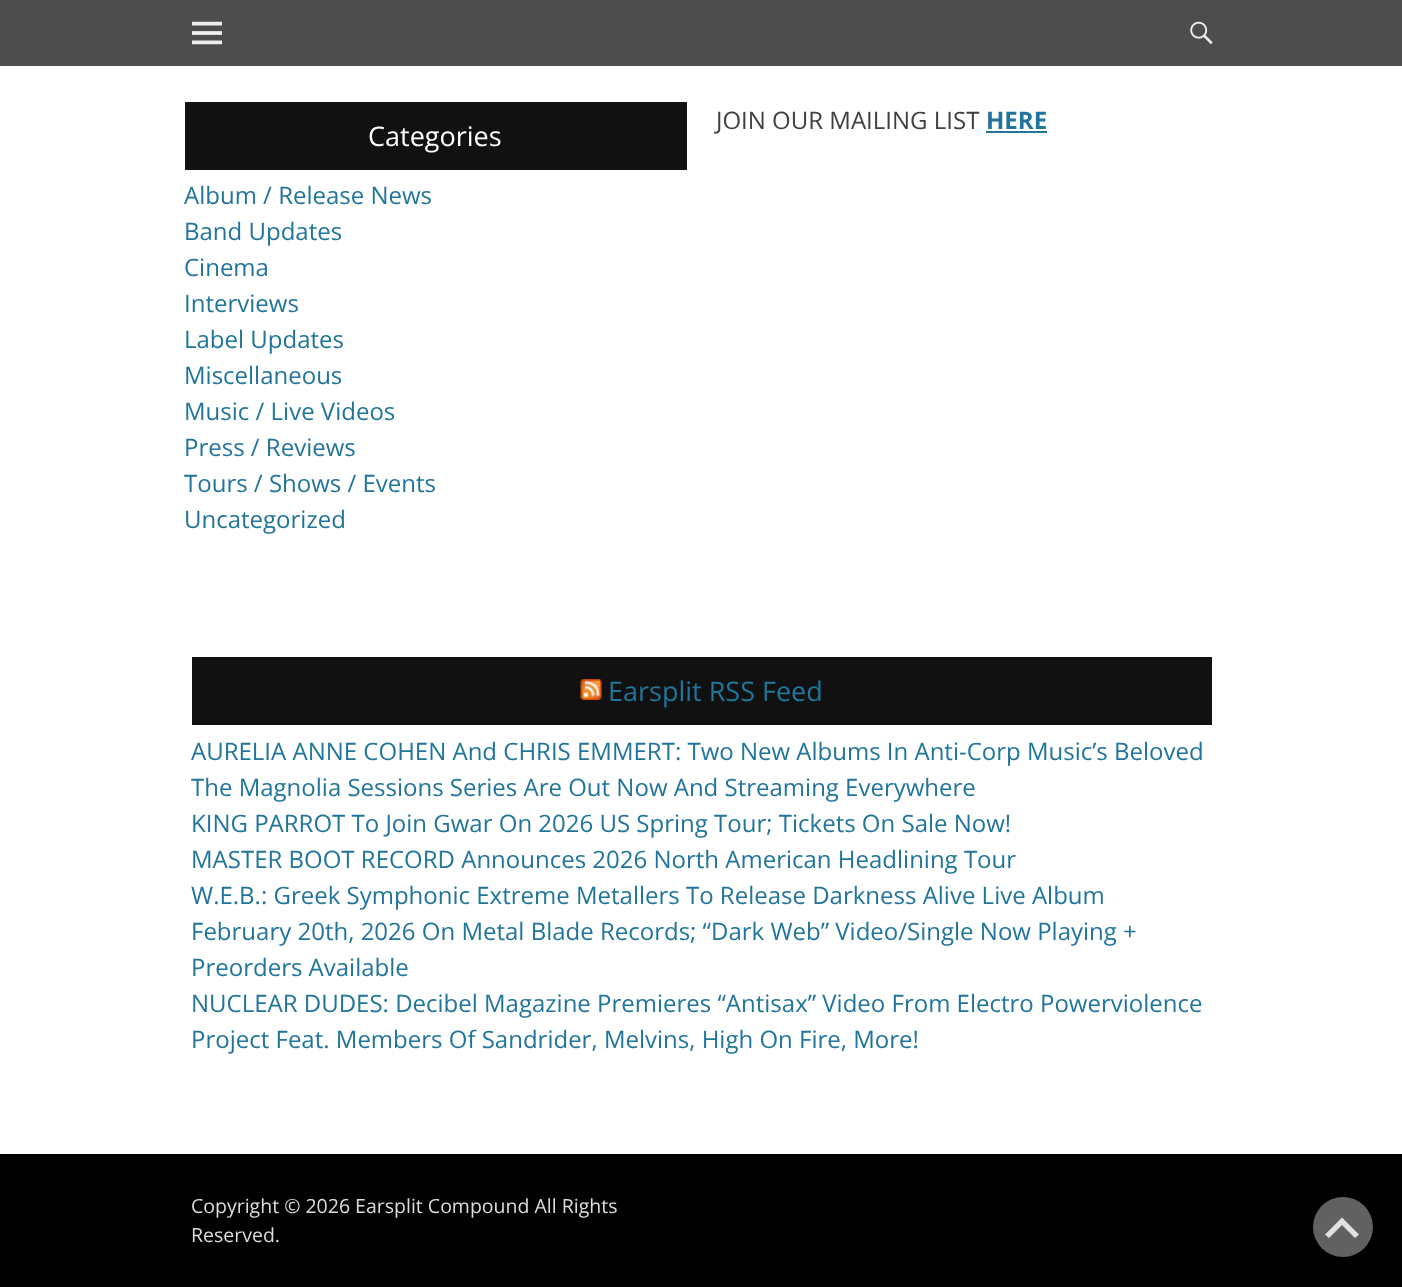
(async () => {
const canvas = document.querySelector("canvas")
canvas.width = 1402
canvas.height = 1287
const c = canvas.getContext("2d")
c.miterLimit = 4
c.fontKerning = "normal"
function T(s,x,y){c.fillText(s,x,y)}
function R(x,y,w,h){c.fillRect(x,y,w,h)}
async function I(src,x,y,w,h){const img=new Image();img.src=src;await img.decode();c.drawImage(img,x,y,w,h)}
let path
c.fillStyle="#fff"
R(0,0,1402,1287)
c.fillStyle="#4d4d4d"
R(0,0,1402,66)
await I("1.png",192,21,30,24)
await I("2.png",1190,21,23,24)
c.font="24px Open Sans"
c.fillStyle="#404040"
T("JOIN OUR MAILING LIST",716,129)
c.font="bold 24px Open Sans"
c.fillStyle="#21759b"
T("HERE",986,129)
R(986,131,61,2)
c.fillStyle="#111"
R(185,102,502,68)
c.font="27px Open Sans"
c.fillStyle="#fff"
T("Categories",368,146)
c.font="24px Open Sans"
c.fillStyle="#21759b"
T("Album / Release News",184,204)
T("Band Updates",184,240)
T("Cinema",184,276)
T("Interviews",184,312)
T("Label Updates",184,348)
T("Miscellaneous",184,384)
T("Music / Live Videos",184,420)
T("Press / Reviews",184,456)
T("Tours / Shows / Events",184,492)
T("Uncategorized",184,528)
c.fillStyle="#111"
R(192,657,1020,68)
await I("3.png",580,679,22,21)
c.font="27px Open Sans"
c.fillStyle="#21759b"
T("Earsplit RSS Feed",608,701)
c.font="24px Open Sans"
T("AURELIA ANNE COHEN And CHRIS EMMERT: Two New Albums In Anti-Corp Music’s Beloved",191,760)
T("The Magnolia Sessions Series Are Out Now And Streaming Everywhere",191,796)
T("KING PARROT To Join Gwar On 2026 US Spring Tour; Tickets On Sale Now!",191,832)
T("MASTER BOOT RECORD Announces 2026 North American Headlining Tour",191,868)
T("W.E.B.: Greek Symphonic Extreme Metallers To Release Darkness Alive Live Album",191,904)
T("February 20th, 2026 On Metal Blade Records; “Dark Web” Video/Single Now Playing +",191,940)
T("Preorders Available",191,976)
T("NUCLEAR DUDES: Decibel Magazine Premieres “Antisax” Video From Electro Powerviolence",191,1012)
T("Project Feat. Members Of Sandrider, Melvins, High On Fire, More!",191,1048)
c.fillStyle="#000"
R(0,1154,1402,133)
c.font="19.5px Open Sans"
c.fillStyle="#ddd"
T("Copyright © 2026 Earsplit Compound All Rights",191,1213)
T("Reserved.",191,1242)
c.fillStyle="#616161"
c.beginPath()
c.arc(1343,1227,30,0,7)
c.fill()
c.fillStyle="#e1e1e1"
path = new Path2D("M1355 1238l-13-13l-13 13l-4-3.5l17-17l17 17z")
c.fill(path)
})()
